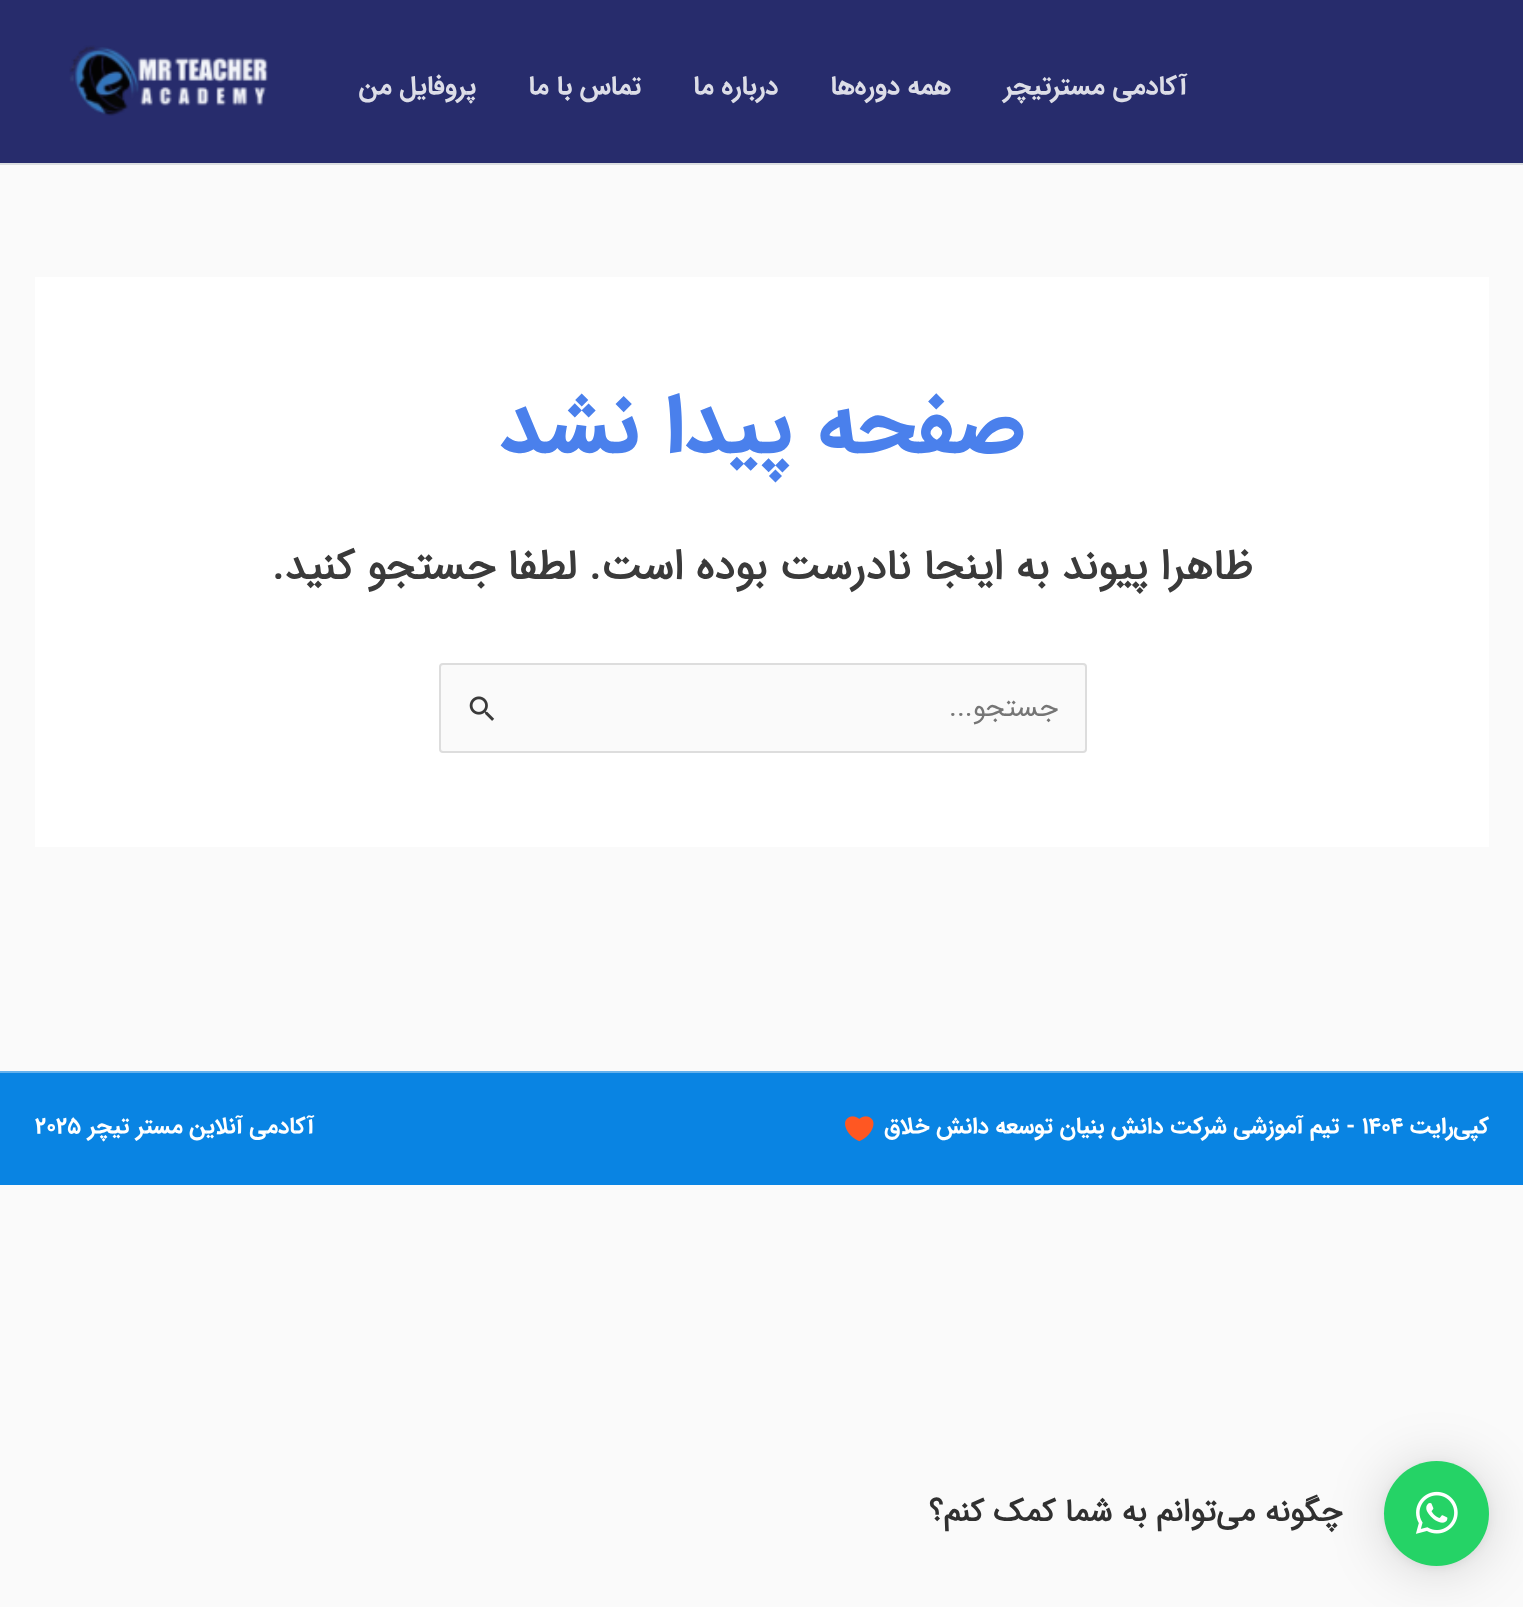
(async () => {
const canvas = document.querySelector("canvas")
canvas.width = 1523
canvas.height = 1607
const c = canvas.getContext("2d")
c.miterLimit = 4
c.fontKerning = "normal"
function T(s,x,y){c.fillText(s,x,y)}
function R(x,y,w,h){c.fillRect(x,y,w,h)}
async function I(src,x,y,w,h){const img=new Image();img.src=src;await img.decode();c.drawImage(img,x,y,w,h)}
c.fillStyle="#fafafa"
R(0,0,1523,1607)
c.fillStyle="#272c6c"
R(0,0,1523,163)
c.fillStyle="#dbdee0"
R(0,163,1523,2)
c.direction="rtl"
c.font="bold 26.25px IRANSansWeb"
c.fillStyle="#dcdde7"
T("آکادمی مسترتيچر",1187,94)
T("همه دوره‌ها",951,94)
T("درباره ما",778,94)
T("تماس با ما",641,94)
T("پروفايل من",476,94)
await I("1.png",69,45,199,71)
c.fillStyle="#fff"
R(35,277,1454,570)
c.font="bold 84px IRANSansWeb"
c.fillStyle="#4a80ec"
T("صفحه پیدا نشد",1025,451)
c.font="bold 42px 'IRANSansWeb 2'"
c.fillStyle="#3a3a3a"
T("ظاهرا پیوند به اینجا نادرست بوده است. لطفا جستجو کنید.",1253,579)
c.fillStyle="#fafafa"
c.beginPath()
c.roundRect(440,664,646,88,3)
c.fill()
c.strokeStyle="#ddd"
c.lineWidth=2
c.stroke()
c.font="28px IRANSansWeb"
c.fillStyle="#757575"
T("جستجو...",1058,716)
await I("2.png",469,696,26,25)
c.fillStyle="#65b1ec"
R(0,1071,1523,2)
c.fillStyle="#0984e3"
R(0,1073,1523,112)
c.font="bold 22.75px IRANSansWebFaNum"
c.fillStyle="#fff"
T("کپی‌رایت",1489,1133)
c.direction="ltr"
T("1404",1362,1133)
c.direction="rtl"
T("- تیم آموزشی شرکت دانش بنیان توسعه دانش خلاق",1355,1133)
await I("3.png",845,1116,29,26)
T("آکادمی آنلاین مستر تیچر",314,1133)
c.direction="ltr"
T("۲۰۲۵",35,1133)
c.fillStyle="#00000029"
c.filter="blur(28px)"
c.beginPath()
c.roundRect(1384,1465,105,105,52.5)
c.fill()
c.filter="none"
c.fillStyle="#0000000f"
c.filter="blur(5px)"
c.beginPath()
c.roundRect(1384,1463,105,105,52.5)
c.fill()
c.filter="none"
c.fillStyle="#25d366"
c.beginPath()
c.arc(1436.5,1513.5,52.5,0,7)
c.fill()
await I("4.png",1415,1491,43,43)
c.direction="rtl"
c.font="bold 31.5px 'IRANSansWeb 2'"
c.fillStyle="#303030"
T("چگونه می",1342,1521)
T("‌توانم به شما کمک کنم؟",1216,1521)
})()
